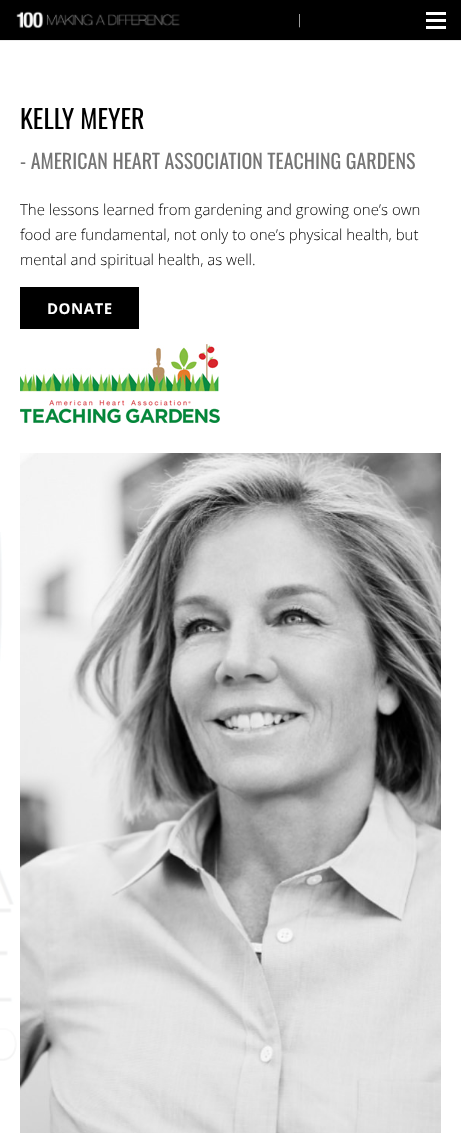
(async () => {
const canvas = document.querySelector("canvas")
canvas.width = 461
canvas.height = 1133
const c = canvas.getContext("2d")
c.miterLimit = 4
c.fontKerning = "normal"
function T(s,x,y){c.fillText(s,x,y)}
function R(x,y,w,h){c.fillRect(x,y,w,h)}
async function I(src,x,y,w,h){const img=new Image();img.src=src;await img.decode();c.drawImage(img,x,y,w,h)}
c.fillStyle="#fff"
R(0,0,461,1133)
c.fillStyle="#ebebeb"
R(0,40,461,1)
c.fillStyle="#000"
R(0,0,461,40)
await I("1.png",16,11,164,18)
c.font="300 13px Open Sans"
c.fillStyle="#fff"
T("|",296,24)
R(426,19,20,3)
R(426,12,20,3)
R(426,26,20,3)
c.font="26px Oswald"
c.fillStyle="#000"
T("KELLY MEYER",20,129)
c.font="20px Oswald"
c.fillStyle="#757575"
T("- AMERICAN HEART ASSOCIATION TEACHING GARDENS",20,169)
c.font="300 15px Open Sans"
c.fillStyle="#000"
T("The lessons learned from gardening and growing one’s own",20,215)
T("food are fundamental, not only to one’s physical health, but",20,240)
T("mental and spiritual health, as well.",20,265)
R(20,287,119,42)
c.letterSpacing="0.5px"
c.font="bold 15px Open Sans"
c.fillStyle="#fff"
T("DONATE",47,314)
await I("2.png",20,344,200,79)
await I("3.png",20,453,421,680)
await I("4.png",0,532,17,529)
})()
